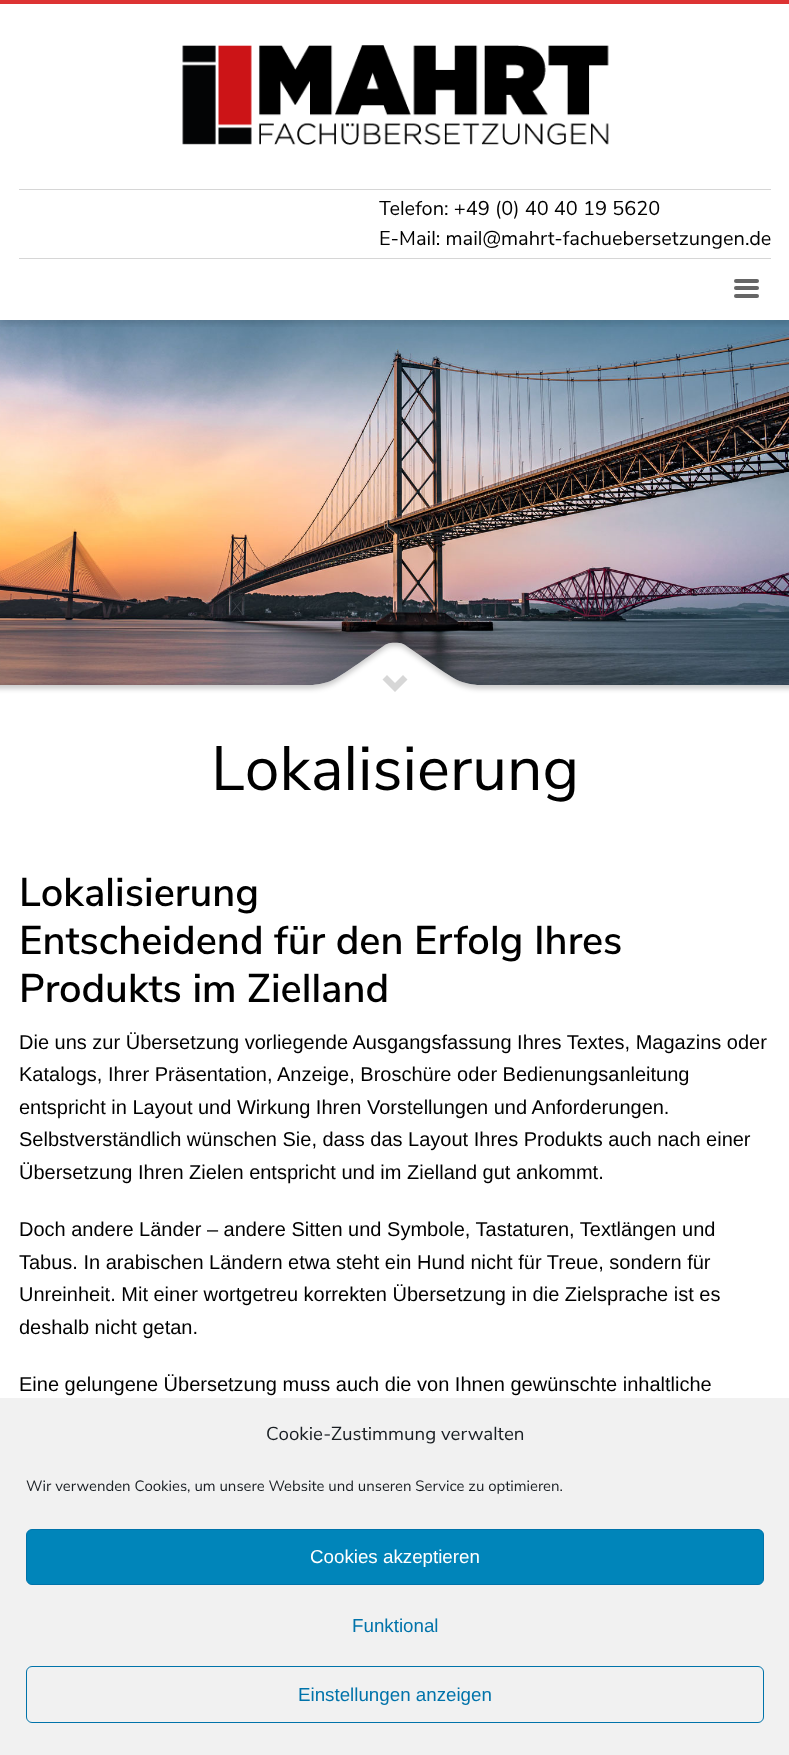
(async () => {
const canvas = document.querySelector("canvas")
canvas.width = 789
canvas.height = 1755
const c = canvas.getContext("2d")
c.miterLimit = 4
c.fontKerning = "normal"
function T(s,x,y){c.fillText(s,x,y)}
function R(x,y,w,h){c.fillRect(x,y,w,h)}
function Q(x,y,w,h,r){c.beginPath();c.roundRect(x,y,w,h,r);c.fill()}
async function I(src,x,y,w,h){const img=new Image();img.src=src;await img.decode();c.drawImage(img,x,y,w,h)}
let path
c.fillStyle="#fff"
R(0,0,789,1755)
await I("2.png",0,320,789,365)
c.save()
c.beginPath()
c.rect(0,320,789,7)
c.clip()
c.fillStyle="#0000001a"
c.filter="blur(3px)"
c.beginPath()
c.rect(0,4,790,320)
c.fill()
c.filter="none"
c.restore()
c.fillStyle="#d33"
R(0,0,789,4)
await I("1.png",182,45,427,100)
c.fillStyle="#d6d6d6"
R(19,189,752,1)
c.font="20px Nunito Sans"
c.fillStyle="#000"
T("Telefon: +49 (0) 40 40 19 5620",379,215)
T("E-Mail: mail@mahrt-fachuebersetzungen.de",379,245)
c.fillStyle="#d6d6d6"
R(19,258,752,1)
c.fillStyle="#666"
Q(734,279,25,4,2)
Q(734,286,25,4,2)
Q(734,294,25,4,2)
await I("3.png",0,642,789,53)
c.fillStyle="#d7d7d7"
path = new Path2D("M407.5 679.5l-12.5 12.5l-12.5-12.5l4.5-4.5l8 8l8-8z")
c.fill(path)
c.font="62.5px Nunito Sans"
c.fillStyle="#000"
T("Lokalisierung",211,790)
c.font="600 40px Nunito Sans"
T("Lokalisierung",19,906)
T("Entscheidend für den Erfolg Ihres",19,954)
T("Produkts im Zielland",19,1002)
c.font="20px Liberation Sans"
T("Die uns zur Übersetzung vorliegende Ausgangsfassung Ihres Textes, Magazins oder",19,1049)
T("Katalogs, Ihrer Präsentation, Anzeige, Broschüre oder Bedienungsanleitung",19,1081)
T("entspricht in Layout und Wirkung Ihren Vorstellungen und Anforderungen.",19,1114)
T("Selbstverständlich wünschen Sie, dass das Layout Ihres Produkts auch nach einer",19,1146)
T("Übersetzung Ihren Zielen entspricht und im Zielland gut ankommt.",19,1179)
T("Doch andere Länder – andere Sitten und Symbole, Tastaturen, Textlängen und",19,1236)
T("Tabus. In arabischen Ländern etwa steht ein Hund nicht für Treue, sondern für",19,1269)
T("Unreinheit. Mit einer wortgetreu korrekten Übersetzung in die Zielsprache ist es",19,1301)
T("deshalb nicht getan.",19,1334)
T("Eine gelungene Übersetzung muss auch die von Ihnen gewünschte inhaltliche",19,1391)
c.fillStyle="#f1f1f1"
R(0,1398,789,357)
c.font="18.75px Nunito Sans"
c.fillStyle="#191e23"
T("Cookie-Zustimmung verwalten",266,1440)
c.font="15px Nunito Sans"
T("Wir verwenden Cookies, um unsere Website und unseren Service zu optimieren.",26,1491)
c.fillStyle="#0085ba"
c.beginPath()
c.roundRect(26.5,1529.5,737,55,5.5)
c.fill()
c.strokeStyle="#0073aa"
c.stroke()
c.font="18.75px Liberation Sans"
c.fillStyle="#fff"
T("Cookies akzeptieren",310,1563)
c.fillStyle="#0073aa"
T("Funktional",352,1632)
c.beginPath()
c.roundRect(26.5,1666.5,737,56,5.5)
c.stroke()
T("Einstellungen anzeigen",298,1701)
})()
